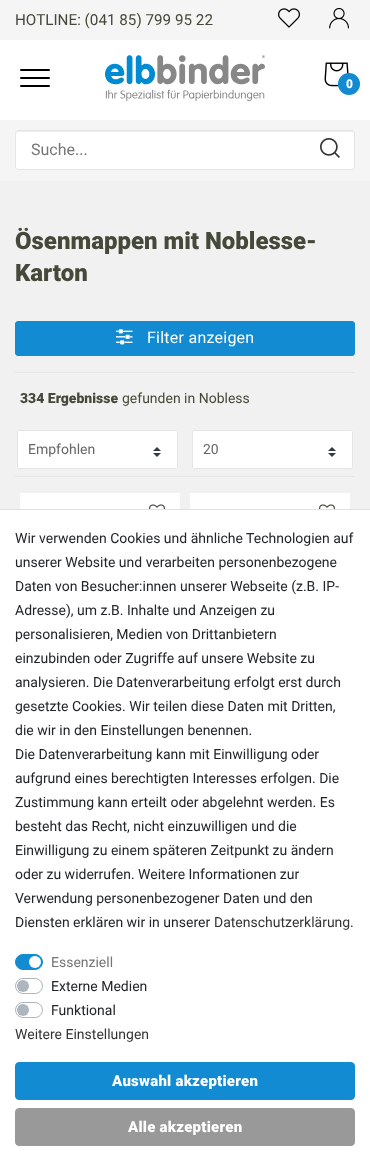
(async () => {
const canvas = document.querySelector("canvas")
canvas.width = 370
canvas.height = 1170
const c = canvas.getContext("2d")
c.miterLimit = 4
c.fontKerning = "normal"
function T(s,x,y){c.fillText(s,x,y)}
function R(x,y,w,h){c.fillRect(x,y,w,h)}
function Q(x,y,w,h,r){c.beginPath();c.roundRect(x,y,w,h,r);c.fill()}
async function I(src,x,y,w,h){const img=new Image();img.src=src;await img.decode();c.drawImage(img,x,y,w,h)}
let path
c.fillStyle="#fff"
R(0,0,370,1170)
c.fillStyle="#f5f5f5"
R(0,0,370,40)
R(0,120,370,61)
c.font="15.25px Roboto"
c.fillStyle="#444939"
T("HOTLINE: (041 85) 799 95 22",15,25)
c.fillStyle="#000"
Q(20,69,30,2,1)
Q(20,77,30,2,1)
Q(20,85,30,2,1)
await I("1.png",105,55,160,46)
await I("2.png",278,8,22,20)
await I("3.png",329,7,20,22)
await I("4.png",324,62,25,25)
c.fillStyle="#128bd2"
c.beginPath()
c.arc(349,84,11,0,7)
c.fill()
c.font="900 12px Roboto"
c.fillStyle="#fff"
T("0",346,88)
Q(15,130,340,40,3)
c.fillStyle="#ececec"
path = new Path2D("M18 132h334c1 0 2 1 2 2c0-1 0-3-2-3h-334l-2 1v2c0-1 1-2 2-2z")
c.fill(path)
c.beginPath()
c.roundRect(15.5,130.5,339,39,2.5)
c.strokeStyle="#e5e5e5"
c.stroke()
c.font="16px Roboto"
c.fillStyle="#757575"
T("Suche...",31,155)
await I("5.png",320,138,20,20)
c.fillStyle="#f1f1f1"
R(0,181,370,328)
c.font="900 24px Roboto"
c.fillStyle="#444939"
T("Ösenmappen mit Noblesse-",15,249)
T("Karton",15,281)
c.fillStyle="#128bd2"
c.beginPath()
c.roundRect(15.5,321.5,339,34,2.5)
c.fill()
c.strokeStyle="#128bd2"
c.stroke()
await I("6.png",116,329,17,16)
c.letterSpacing="0.25px"
c.font="16px Roboto"
c.fillStyle="#fff"
T("Filter anzeigen",147,343)
c.fillStyle="#e5e5e5"
R(15,372,340,1)
R(15,476,340,1)
c.letterSpacing="0px"
c.font="900 14px Roboto"
c.fillStyle="#444939"
T("334 Ergebnisse",20,403)
c.font="14px Roboto"
T("gefunden in Nobless",122,403)
c.fillStyle="#fff"
Q(17,430,161,39,1.5)
await I("7.png",153,447,8,10)
c.beginPath()
c.roundRect(17.5,430.5,160,38,1)
c.strokeStyle="#e5e5e5"
c.stroke()
c.fillStyle="#666"
T("Empfohlen",28,454)
c.fillStyle="#fff"
Q(192,430,161,39,1.5)
await I("7.png",328,447,8,10)
c.beginPath()
c.roundRect(192.5,430.5,160,38,1)
c.stroke()
c.fillStyle="#666"
T("20",203,454)
c.fillStyle="#fff"
R(20,493,160,16)
await I("8.png",149,504,16,5)
R(190,493,160,16)
await I("8.png",319,504,16,5)
c.fillStyle="#dee2e6"
R(0,509,370,1)
c.fillStyle="#212529"
T("Wir verwenden Cookies und ähnliche Technologien auf",15,543)
T("unserer Website und verarbeiten personenbezogene",15,567)
T("Daten von Besucher:innen unserer Webseite (z.B. IP-",15,591)
T("Adresse), um z.B. Inhalte und Anzeigen zu",15,615)
T("personalisieren, Medien von Drittanbietern",15,639)
T("einzubinden oder Zugriffe auf unsere Website zu",15,663)
T("analysieren. Die Datenverarbeitung erfolgt erst durch",15,687)
T("gesetzte Cookies. Wir teilen diese Daten mit Dritten,",15,711)
T("die wir in den Einstellungen benennen.",15,735)
T("Die Datenverarbeitung kann mit Einwilligung oder",15,759)
T("aufgrund eines berechtigten Interesses erfolgen. Die",15,783)
T("Zustimmung kann erteilt oder abgelehnt werden. Es",15,807)
T("besteht das Recht, nicht einzuwilligen und die",15,831)
T("Einwilligung zu einem späteren Zeitpunkt zu ändern",15,855)
T("oder zu widerrufen. Weitere Informationen zur",15,879)
T("Verwendung personenbezogener Daten und den",15,903)
T("Diensten erklären wir in unserer",15,927)
c.fillStyle="#333"
T("Datenschutzerklärung",214,927)
c.fillStyle="#212529"
T(".",350,927)
c.fillStyle="#128bd2"
c.beginPath()
c.roundRect(15.5,954.5,27,15,7.5)
c.fill()
c.strokeStyle="#128bd2"
c.stroke()
c.fillStyle="#fff"
c.beginPath()
c.arc(35,962,6,0,7)
c.fill()
c.fillStyle="#757575"
T("Essenziell",51,967)
c.beginPath()
c.roundRect(15.5,978.5,27,15,7.5)
c.strokeStyle="#adb5bd"
c.stroke()
c.fillStyle="#adb5bd"
c.beginPath()
c.arc(23,986,6,0,7)
c.fill()
c.fillStyle="#212529"
T("Externe Medien",51,991)
c.beginPath()
c.roundRect(15.5,1002.5,27,15,7.5)
c.stroke()
c.fillStyle="#adb5bd"
c.beginPath()
c.arc(23,1010,6,0,7)
c.fill()
c.fillStyle="#212529"
T("Funktional",51,1015)
c.fillStyle="#333"
T("Weitere Einstellungen",15,1039)
c.fillStyle="#128bd2"
c.beginPath()
c.roundRect(15.5,1062.5,339,37,3.5)
c.fill()
c.strokeStyle="#128bd2"
c.stroke()
c.letterSpacing="0.25px"
c.font="900 15px Roboto"
c.fillStyle="#fff"
T("Auswahl akzeptieren",112,1086)
c.fillStyle="#999"
c.beginPath()
c.roundRect(15.5,1108.5,339,37,3.5)
c.fill()
c.strokeStyle="#999"
c.stroke()
c.fillStyle="#fff"
T("Alle akzeptieren",128,1132)
})()
